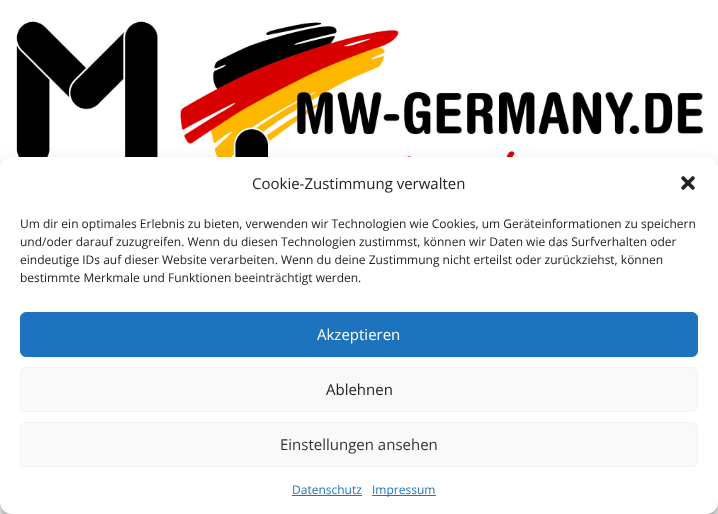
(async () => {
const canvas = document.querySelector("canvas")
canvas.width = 718
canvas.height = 514
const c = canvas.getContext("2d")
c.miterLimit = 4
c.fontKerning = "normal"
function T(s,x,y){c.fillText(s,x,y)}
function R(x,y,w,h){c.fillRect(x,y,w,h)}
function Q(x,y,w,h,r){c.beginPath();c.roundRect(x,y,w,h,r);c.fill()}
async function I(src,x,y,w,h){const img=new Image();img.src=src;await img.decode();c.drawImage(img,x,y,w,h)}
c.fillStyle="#fff"
R(0,0,718,514)
await I("1.png",16,20,687,137)
c.fillStyle="#0000003b"
c.filter="blur(3px)"
c.beginPath()
c.roundRect(0,163,718,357,12)
c.fill()
c.filter="none"
c.fillStyle="#00000030"
c.filter="blur(10px)"
c.beginPath()
c.roundRect(0,167,718,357,12)
c.fill()
c.filter="none"
c.fillStyle="#fff"
Q(0,157,718,357,12)
c.font="15px Open Sans"
c.fillStyle="#222"
T("Cookie-Zustimmung verwalten",252,189)
await I("2.png",681,176,14,14)
c.font="12px Open Sans"
T("Um dir ein optimales Erlebnis zu bieten, verwenden wir Technologien wie Cookies, um Geräteinformationen zu speichern",20,228)
T("und/oder darauf zuzugreifen. Wenn du diesen Technologien zustimmst, können wir Daten wie das Surfverhalten oder",20,246)
T("eindeutige IDs auf dieser Website verarbeiten. Wenn du deine Zustimmung nicht erteilst oder zurückziehst, können",20,264)
T("bestimmte Merkmale und Funktionen beeinträchtigt werden.",20,282)
c.fillStyle="#1e73be"
c.beginPath()
c.roundRect(20.5,312.5,677,44,5.5)
c.fill()
c.strokeStyle="#1e73be"
c.stroke()
c.font="15px Open Sans"
c.fillStyle="#fff"
T("Akzeptieren",317,340)
c.fillStyle="#f9f9f9"
c.beginPath()
c.roundRect(20.5,367.5,677,44,5.5)
c.fill()
c.strokeStyle="#f2f2f2"
c.stroke()
c.fillStyle="#222"
T("Ablehnen",326,395)
c.fillStyle="#f9f9f9"
c.beginPath()
c.roundRect(20.5,422.5,677,44,5.5)
c.fill()
c.stroke()
c.fillStyle="#333"
T("Einstellungen ansehen",280,450)
c.font="12px Open Sans"
c.fillStyle="#1e73be"
T("Datenschutz",292,494)
R(292,495,70,1)
R(372,495,64,1)
T("Impressum",372,494)
})()
